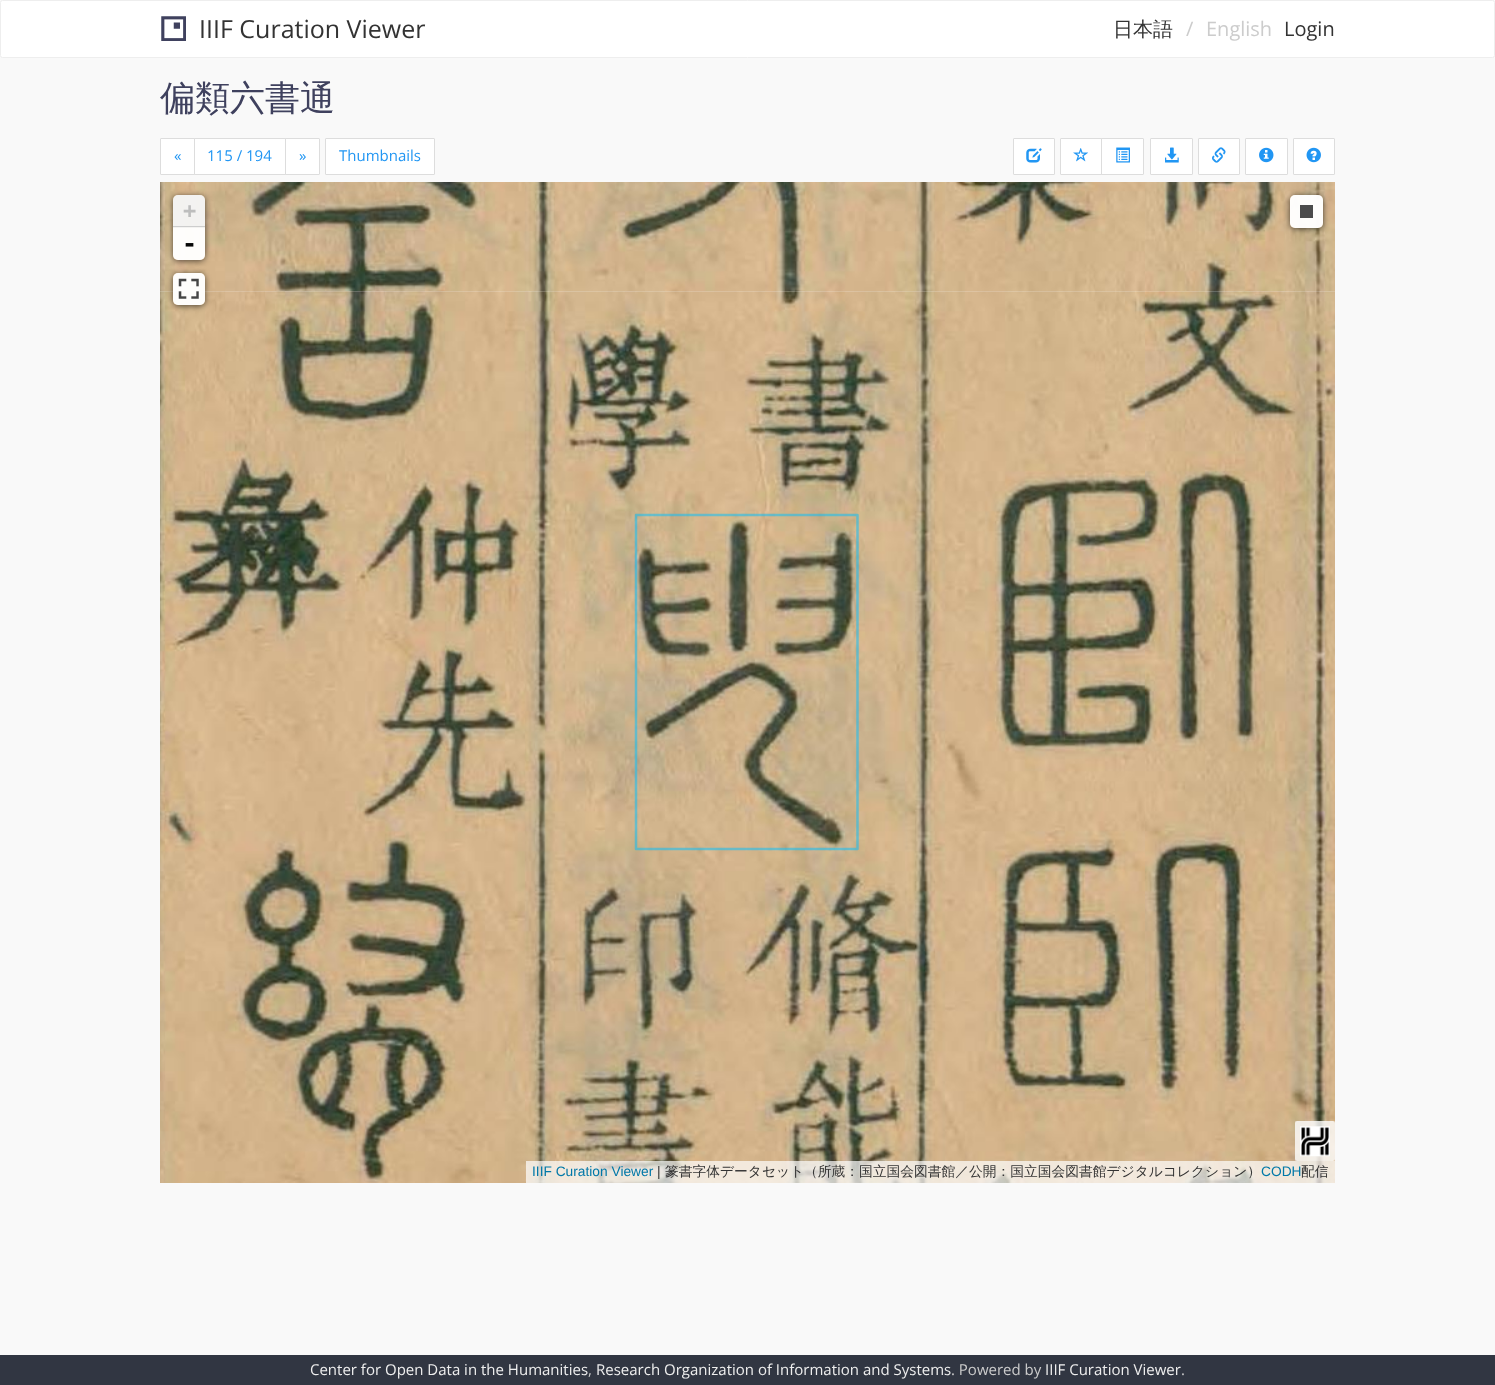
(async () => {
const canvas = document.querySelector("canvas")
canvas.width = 1495
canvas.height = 1385
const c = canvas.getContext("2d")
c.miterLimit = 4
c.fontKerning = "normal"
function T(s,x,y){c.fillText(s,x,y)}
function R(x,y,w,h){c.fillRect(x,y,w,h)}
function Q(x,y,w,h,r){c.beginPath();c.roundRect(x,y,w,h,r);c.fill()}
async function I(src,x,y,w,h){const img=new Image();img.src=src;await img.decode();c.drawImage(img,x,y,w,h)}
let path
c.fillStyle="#f9f9f9"
R(0,0,1495,1385)
c.fillStyle="#fff"
c.beginPath()
c.roundRect(.5,.5,1494,57,2)
c.fill()
c.strokeStyle="#eee"
c.stroke()
await I("1.png",161,16,25,25)
c.font="25px Open Sans"
c.fillStyle="#333"
T("IIIF Curation Viewer",199,38)
c.font="500 20px WenQuanYi Zen Hei"
T("日本語",1113,36)
c.font="20px Open Sans"
c.fillStyle="#ccc"
T("/",1186,36)
T("English",1206,36)
c.fillStyle="#333"
T("Login",1284,36)
c.font="500 35px WenQuanYi Zen Hei"
c.fillStyle="#3f415e"
T("偏類六書通",160,110)
c.fillStyle="#fff"
c.beginPath()
c.roundRect(160.5,138.5,34,36,[.5,0,0,.5])
c.fill()
c.strokeStyle="#ddd"
c.stroke()
c.font="15px Open Sans"
c.fillStyle="#2196f3"
T("«",174,161)
c.fillStyle="#fff"
c.beginPath()
c.rect(194.5,138.5,91,36)
c.fill()
c.stroke()
c.fillStyle="#2196f3"
T("115 / 194",207,161)
c.fillStyle="#fff"
c.beginPath()
c.roundRect(285.5,138.5,34,36,[0,.5,.5,0])
c.fill()
c.stroke()
c.fillStyle="#2196f3"
T("»",299,161)
c.fillStyle="#fff"
c.beginPath()
c.roundRect(325.5,138.5,109,36,.5)
c.fill()
c.stroke()
c.fillStyle="#2196f3"
T("Thumbnails",339,161)
c.fillStyle="#fff"
c.beginPath()
c.roundRect(1013.5,138.5,41,36,.5)
c.fill()
c.stroke()
await I("2.png",1026,148,16,15)
c.beginPath()
c.roundRect(1060.5,138.5,42,36,[.5,0,0,.5])
c.fill()
c.stroke()
await I("3.png",1073,148,15,14)
c.beginPath()
c.roundRect(1101.5,138.5,42,36,[0,.5,.5,0])
c.fill()
c.stroke()
await I("4.png",1116,147,14,16)
c.beginPath()
c.roundRect(1150.5,138.5,42,36,.5)
c.fill()
c.stroke()
await I("5.png",1165,147,14,16)
c.beginPath()
c.roundRect(1198.5,138.5,41,36,.5)
c.fill()
c.stroke()
await I("6.png",1212,147,14,16)
c.beginPath()
c.roundRect(1245.5,138.5,42,36,.5)
c.fill()
c.stroke()
await I("7.png",1259,147,15,16)
c.beginPath()
c.roundRect(1293.5,138.5,41,36,.5)
c.fill()
c.stroke()
await I("8.png",1306,147,15,16)
await I("9.png",160,182,985,110)
await I("10.png",1145,182,190,110)
await I("11.png",160,291,985,892)
await I("12.png",1145,291,190,892)
path = new Path2D("M636 849v-334h221.5v334z")
c.strokeStyle="#00bfff80"
c.lineWidth=2.5
c.lineCap="round"
c.lineJoin="round"
c.stroke(path)
c.save()
path = new Path2D("M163 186h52v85h-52zm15 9h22c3 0 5 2 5 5v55c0 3-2 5-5 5h-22c-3 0-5-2-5-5v-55c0-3 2-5 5-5z")
c.clip(path,"evenodd")
c.fillStyle="#000000a1"
c.filter="blur(3px)"
c.beginPath()
c.roundRect(173,196,32,65,5)
c.fill()
c.filter="none"
c.restore()
c.fillStyle="#f4f4f4f7"
c.beginPath()
c.roundRect(173,195,32,33,[5,5,0,0])
c.fill()
c.fillStyle="#cdcdcd"
R(173,226,32,1)
c.font="bold 22px DejaVu Sans Mono"
c.fillStyle="#bdbdbd"
T("+",183,218)
c.fillStyle="#fffffff7"
c.beginPath()
c.roundRect(173,228,32,32,[0,0,5,5])
c.fill()
c.font="bold 25px DejaVu Sans Mono"
c.fillStyle="#070707"
T("-",182,252)
c.save()
path = new Path2D("M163 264h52v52h-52zm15 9h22c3 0 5 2 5 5v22c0 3-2 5-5 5h-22c-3 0-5-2-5-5v-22c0-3 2-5 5-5z")
c.clip(path,"evenodd")
c.fillStyle="#000000a1"
c.filter="blur(3px)"
c.beginPath()
c.roundRect(173,274,32,32,5)
c.fill()
c.filter="none"
c.restore()
c.fillStyle="#fffffff7"
Q(173,273,32,32,5)
await I("13.png",178,278,21,21)
c.save()
path = new Path2D("M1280 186h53v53h-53zm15 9h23c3 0 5 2 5 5v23c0 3-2 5-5 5h-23c-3 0-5-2-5-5v-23c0-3 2-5 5-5z")
c.clip(path,"evenodd")
c.fillStyle="#000000a1"
c.filter="blur(3px)"
c.beginPath()
c.roundRect(1290,196,33,33,5)
c.fill()
c.filter="none"
c.restore()
Q(1290,195,33,33,5)
c.fillStyle="#4b4b4b"
R(1300,205,13,13)
c.fillStyle="#ffffffb3"
Q(1295,1121,40,40,2.5)
await I("14.png",1300,1126,30,31)
c.beginPath()
c.rect(1297.5,1123.5,35,35)
c.strokeStyle="#ffffff4d"
c.lineWidth=5
c.lineJoin="miter"
c.stroke()
R(526,1161,809,22)
c.font="13.75px Liberation Sans"
c.fillStyle="#0078a8"
T("IIIF Curation Viewer",532,1176)
c.fillStyle="#333"
T("|",657,1176)
c.font="500 13.75px WenQuanYi Zen Hei"
T("篆書字体データセット（所蔵：国立国会図書館／公開：国立国会図書館デジタルコレクション）",665,1176)
c.font="13.75px Liberation Sans"
c.fillStyle="#0078a8"
T("CODH",1261,1176)
c.font="500 13.75px WenQuanYi Zen Hei"
c.fillStyle="#333"
T("配信",1301,1176)
c.fillStyle="#313642"
R(0,1355,1495,30)
c.font="15px Open Sans"
c.fillStyle="#eee"
T("Center for Open Data in the Humanities",310,1375)
c.fillStyle="#ccc"
T(",",588,1375)
c.fillStyle="#eee"
T("Research Organization of Information and Systems",596,1375)
c.fillStyle="#ccc"
T(". Powered by",951,1375)
c.fillStyle="#eee"
T("IIIF Curation Viewer",1045,1375)
c.fillStyle="#ccc"
T(".",1181,1375)
})()
